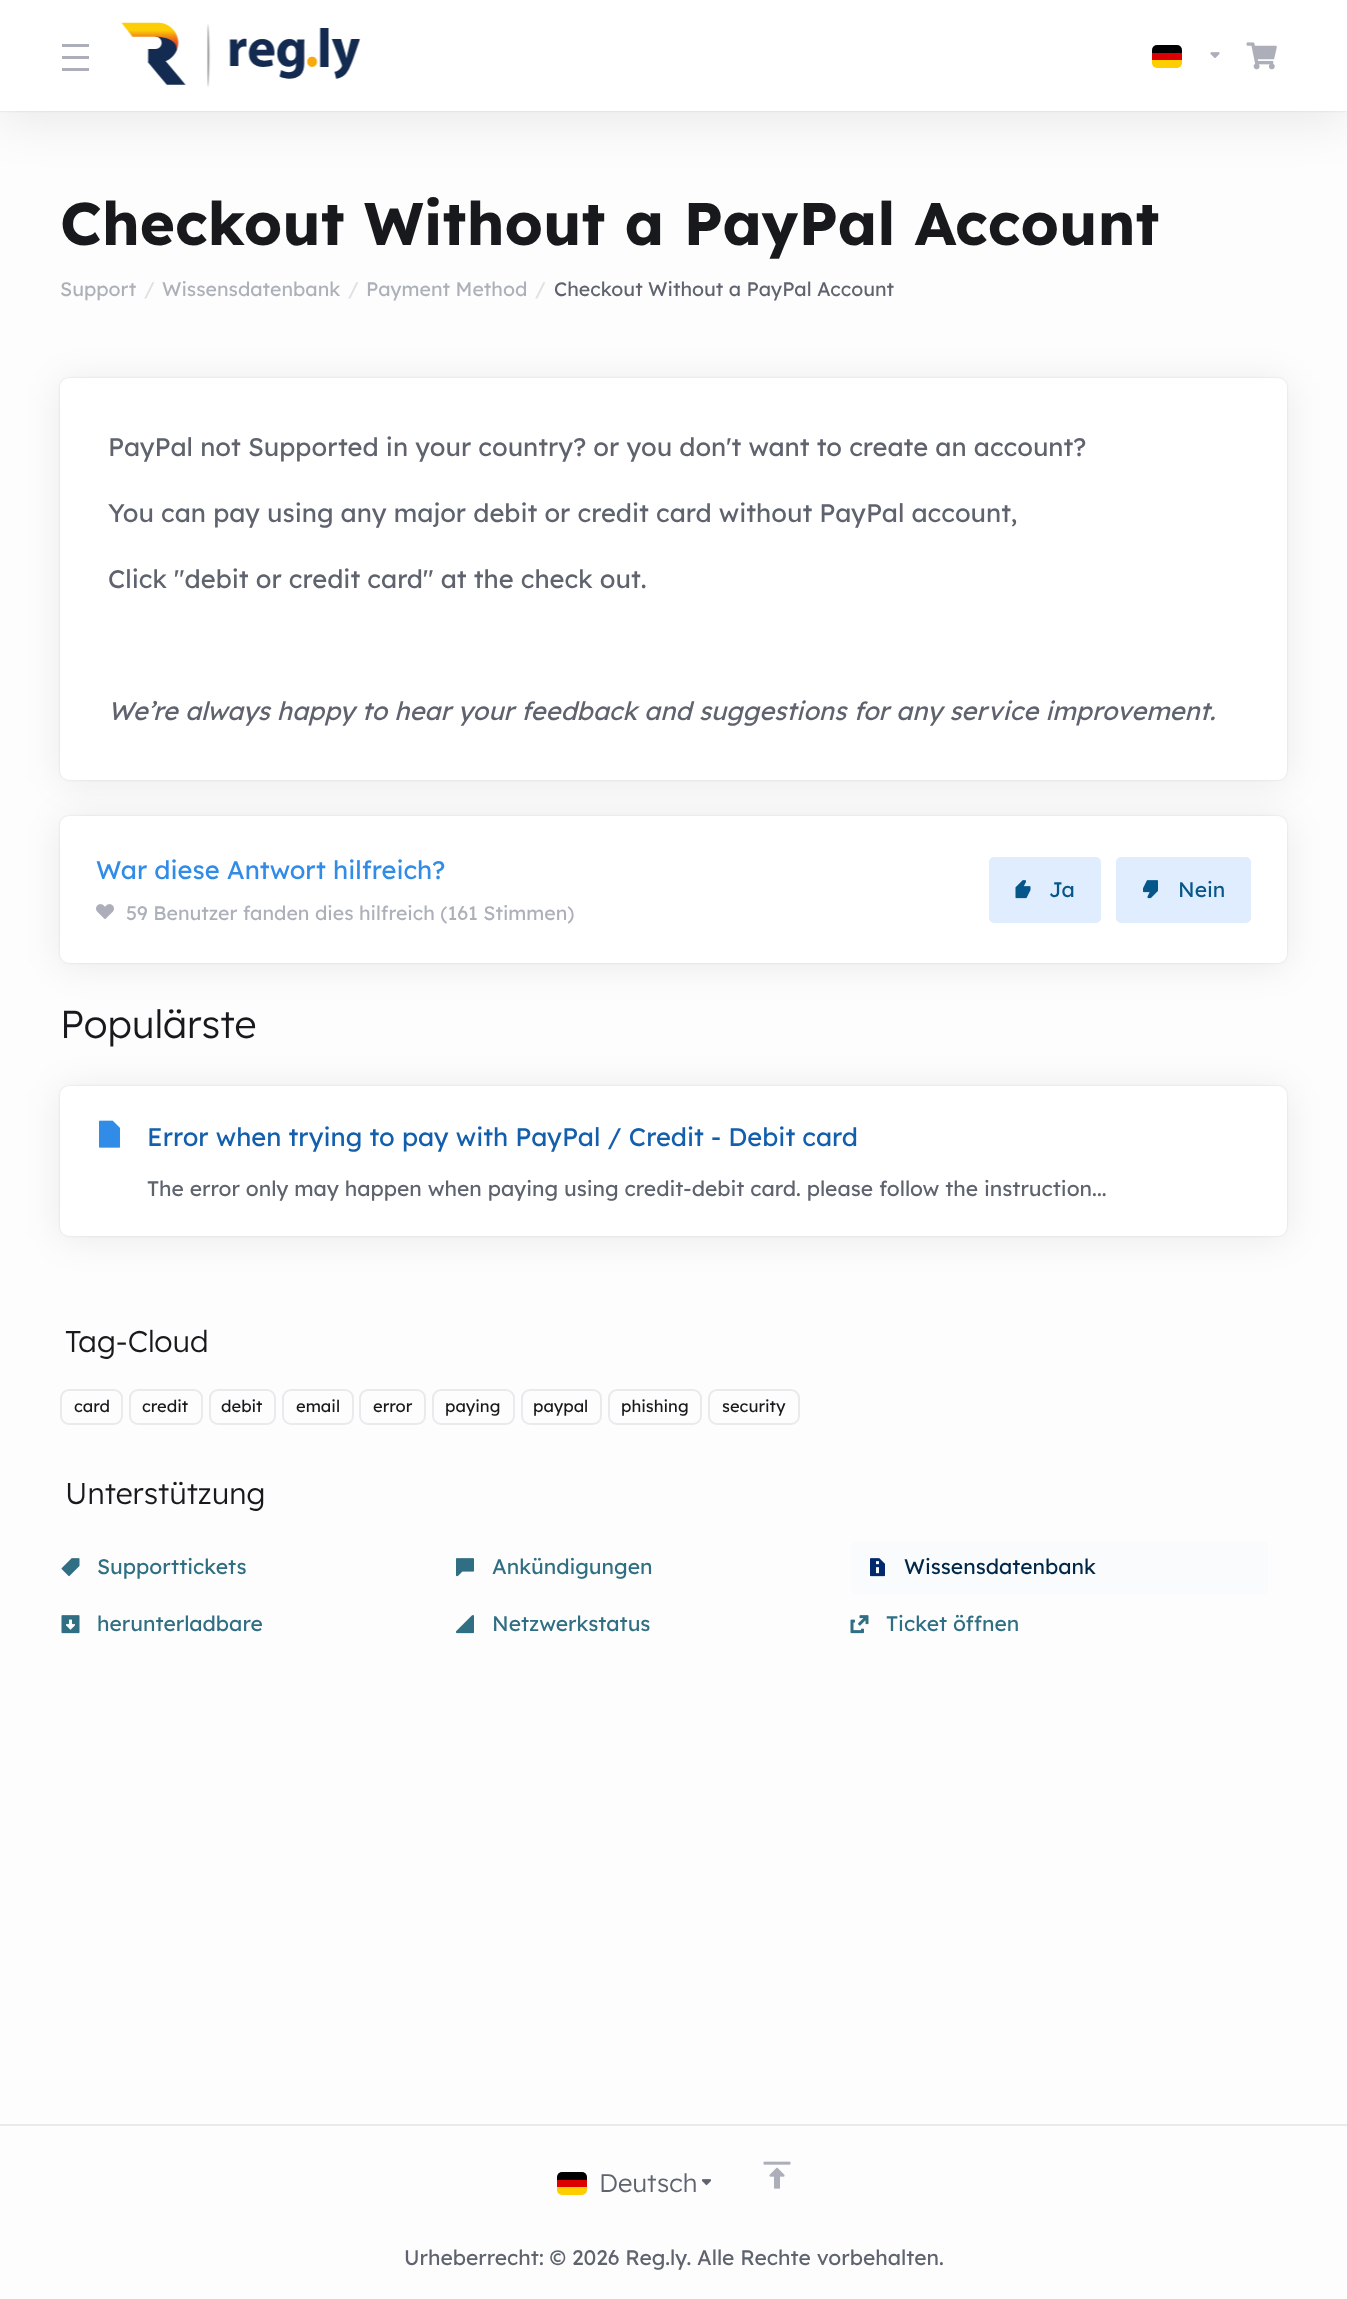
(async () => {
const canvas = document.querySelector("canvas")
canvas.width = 1347
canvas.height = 2299
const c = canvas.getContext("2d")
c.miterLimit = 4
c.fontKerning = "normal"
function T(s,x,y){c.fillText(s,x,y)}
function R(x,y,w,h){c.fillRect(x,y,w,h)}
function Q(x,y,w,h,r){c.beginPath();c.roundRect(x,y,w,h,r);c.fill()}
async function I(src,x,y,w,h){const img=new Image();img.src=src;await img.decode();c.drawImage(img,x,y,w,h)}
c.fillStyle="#fdfdfd"
R(0,0,1347,2299)
c.fillStyle="#00000014"
c.filter="blur(24px)"
c.beginPath()
c.rect(0,12,1347,111)
c.fill()
c.filter="none"
c.fillStyle="#0000001f"
c.filter="blur(1px)"
c.beginPath()
c.rect(0,0,1347,111)
c.fill()
c.filter="none"
c.fillStyle="#fff"
R(0,0,1347,111)
c.fillStyle="#acafb9"
R(62,44,27,3)
R(62,56,27,3)
R(62,68,27,3)
await I("1.png",121,22,240,65)
c.fillStyle="#ffce00"
c.beginPath()
c.roundRect(1152,60,30,8,[0,0,5,5])
c.fill()
c.fillStyle="#000"
c.beginPath()
c.roundRect(1152,45,30,8,[5,5,0,0])
c.fill()
c.fillStyle="#d00"
R(1152,53,30,7)
await I("2.png",1210,52,10,6)
await I("3.png",1246,42,31,28)
c.font="bold 60px Lexend Deca"
c.fillStyle="#17191c"
T("Checkout Without a PayPal Account",60,245)
c.font="19.5px Lexend Deca"
c.fillStyle="#acb0b9"
T("Support",60,296)
c.fillStyle="#dee0e3"
T("/",144,296)
c.fillStyle="#acb0b9"
T("Wissensdatenbank",162,296)
c.fillStyle="#dee0e3"
T("/",348,296)
c.fillStyle="#acb0b9"
T("Payment Method",366,296)
c.fillStyle="#dee0e3"
T("/",535,296)
c.fillStyle="#5e636e"
T("Checkout Without a PayPal Account",554,296)
c.fillStyle="#00000014"
c.filter="blur(18px)"
c.beginPath()
c.roundRect(60,381,1227,402,9)
c.fill()
c.filter="none"
c.fillStyle="#0000001a"
c.filter="blur(1px)"
c.beginPath()
c.roundRect(60,378,1227,402,9)
c.fill()
c.filter="none"
c.fillStyle="#fff"
Q(60,378,1227,402,9)
c.font="25.5px Lexend Deca"
c.fillStyle="#5e636e"
T("PayPal not Supported in your country? or you don't want to create an account?",108,456)
T("You can pay using any major debit or credit card without PayPal account,",108,522)
T("Click \"debit or credit card\" at the check out.",108,588)
c.font="italic 25.5px Lexend Deca"
T("We’re always happy to hear your feedback and suggestions for any service improvement.",108,720)
c.fillStyle="#00000014"
c.filter="blur(18px)"
c.beginPath()
c.roundRect(60,819,1227,147,9)
c.fill()
c.filter="none"
c.fillStyle="#0000001a"
c.filter="blur(1px)"
c.beginPath()
c.roundRect(60,816,1227,147,9)
c.fill()
c.filter="none"
c.fillStyle="#fff"
Q(60,816,1227,147,9)
c.font="25.5px Lexend Deca"
c.fillStyle="#318ce7"
T("War diese Antwort hilfreich?",96,879)
await I("4.png",96,904,18,15)
c.font="19.5px Lexend Deca"
c.fillStyle="#acb0b9"
T("59 Benutzer fanden dies hilfreich (161 Stimmen)",126,920)
c.fillStyle="#dfedff"
c.beginPath()
c.roundRect(990,858,110,64,4)
c.fill()
c.strokeStyle="#dfedff"
c.lineWidth=2
c.stroke()
await I("5.png",1015,880,16,19)
c.font="21px Lexend Deca"
c.fillStyle="#055789"
T("Ja",1049,897)
c.fillStyle="#dfedff"
c.beginPath()
c.roundRect(1117,858,133,64,4)
c.fill()
c.stroke()
await I("6.png",1143,880,15,19)
c.fillStyle="#055789"
T("Nein",1178,897)
c.fillStyle="#00000014"
c.filter="blur(18px)"
c.beginPath()
c.roundRect(60,1089,1227,150,9)
c.fill()
c.filter="none"
c.font="300 39px Lexend Deca"
c.fillStyle="#17191c"
T("Populärste",60,1038)
c.fillStyle="#0000001a"
c.filter="blur(1px)"
c.beginPath()
c.roundRect(60,1086,1227,150,9)
c.fill()
c.filter="none"
c.fillStyle="#fff"
Q(60,1086,1227,150,9)
await I("7.png",99,1120,21,28)
c.font="25.5px Lexend Deca"
c.fillStyle="#135fad"
T("Error when trying to pay with PayPal / Credit - Debit card",147,1146)
c.font="21px Lexend Deca"
c.fillStyle="#5e636e"
T("The error only may happen when paying using credit-debit card. please follow the instruction...",147,1196)
c.font="300 30px Lexend Deca"
c.fillStyle="#17191c"
T("Tag-Cloud",65,1352)
c.beginPath()
c.roundRect(61,1390,61,34,8)
c.strokeStyle="#e9eaec"
c.stroke()
c.font="16.5px Lexend Deca"
T("card",74,1412)
c.beginPath()
c.roundRect(130,1390,72,34,8)
c.stroke()
T("credit",142,1412)
c.beginPath()
c.roundRect(210,1390,65,34,8)
c.stroke()
T("debit",221,1412)
c.beginPath()
c.roundRect(283,1390,70,34,8)
c.stroke()
T("email",296,1412)
c.beginPath()
c.roundRect(360,1390,65,34,8)
c.stroke()
T("error",373,1412)
c.beginPath()
c.roundRect(433,1390,81,34,8)
c.stroke()
T("paying",445,1412)
c.beginPath()
c.roundRect(522,1390,79,34,8)
c.stroke()
T("paypal",533,1412)
c.beginPath()
c.roundRect(609,1390,92,34,8)
c.stroke()
T("phishing",621,1412)
c.beginPath()
c.roundRect(709,1390,90,34,8)
c.stroke()
T("security",722,1412)
c.font="300 30px Lexend Deca"
T("Unterstützung",65,1504)
await I("8.png",61,1558,19,19)
c.font="21px Lexend Deca"
c.fillStyle="#306f83"
T("Supporttickets",97,1574)
await I("9.png",456,1558,18,19)
T("Ankündigungen",492,1574)
c.fillStyle="#fafbfd"
Q(851,1541,417,54,6)
await I("10.png",870,1558,15,19)
c.fillStyle="#002747"
T("Wissensdatenbank",904,1574)
await I("11.png",61,1615,19,19)
c.fillStyle="#306f83"
T("herunterladbare",97,1631)
await I("12.png",456,1615,18,19)
T("Netzwerkstatus",492,1631)
await I("13.png",850,1615,19,19)
T("Ticket öffnen",886,1631)
c.fillStyle="#e9eaec"
R(0,2124,1347,2)
c.fillStyle="#ffce00"
c.beginPath()
c.roundRect(557,2187,30,8,[0,0,5,5])
c.fill()
c.fillStyle="#000"
c.beginPath()
c.roundRect(557,2172,30,8,[5,5,0,0])
c.fill()
c.fillStyle="#d00"
R(557,2180,30,7)
c.font="300 25.5px Lexend Deca"
c.fillStyle="#5e636e"
T("Deutsch",599,2192)
await I("14.png",702,2179,9,7)
await I("15.png",763,2161,28,28)
c.font="21px Lexend Deca"
T("Urheberrecht: © 2026 Reg.ly. Alle Rechte vorbehalten.",404,2265)
})()
